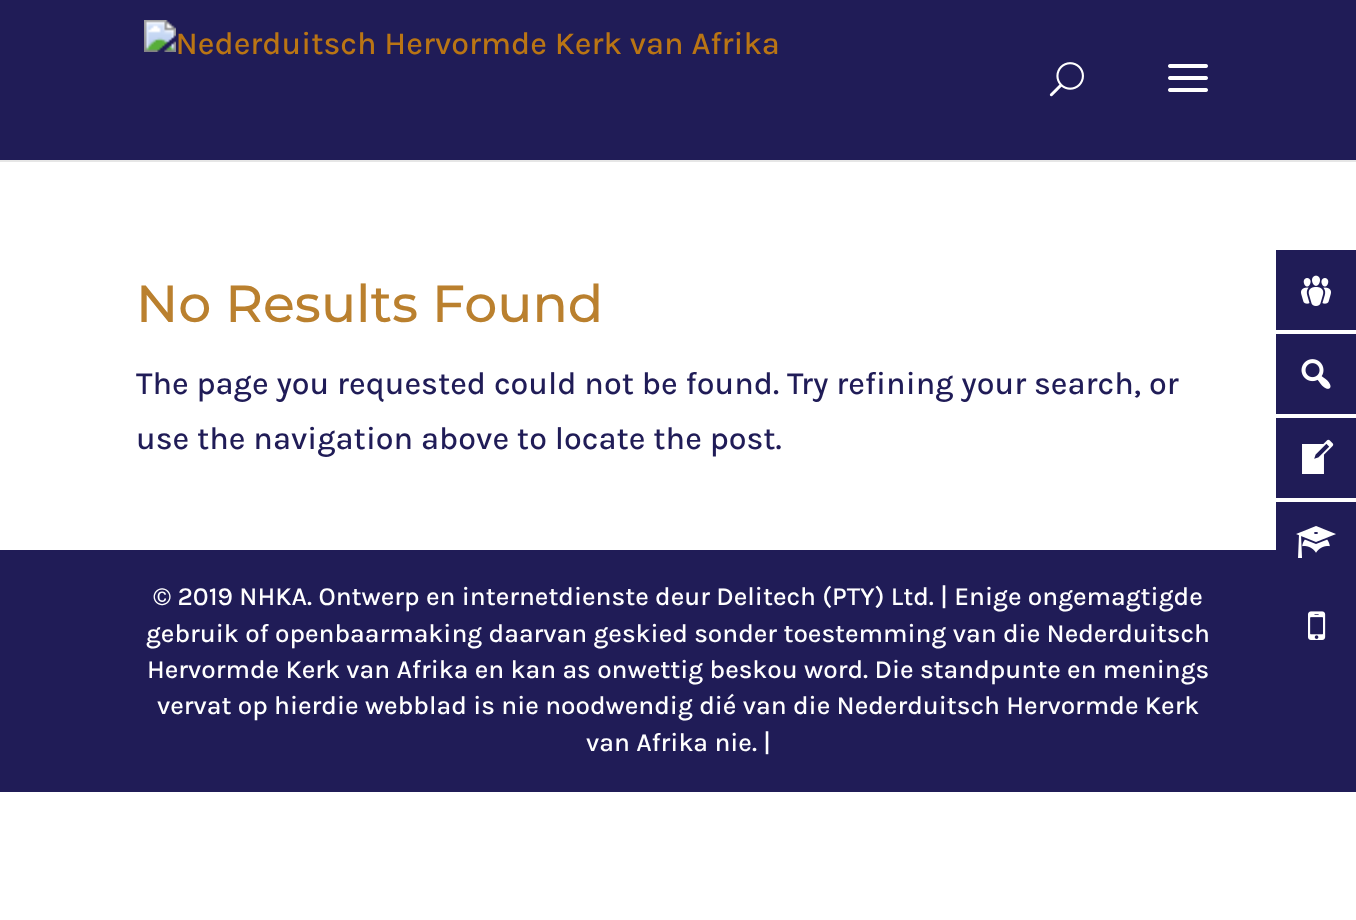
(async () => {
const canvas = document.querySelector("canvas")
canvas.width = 1356
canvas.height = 920
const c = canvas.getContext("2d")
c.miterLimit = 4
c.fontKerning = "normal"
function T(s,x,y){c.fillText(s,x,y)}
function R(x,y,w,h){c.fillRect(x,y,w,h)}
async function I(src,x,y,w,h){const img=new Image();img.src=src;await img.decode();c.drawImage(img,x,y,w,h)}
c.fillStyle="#fff"
R(0,0,1356,920)
c.fillStyle="#e6e6e6"
R(0,160,1356,2)
c.fillStyle="#201c57"
R(0,0,1356,160)
await I("1.png",144,20,634,35)
await I("2.png",1049,62,35,35)
await I("3.png",1168,64,40,28)
c.font="500 52px Montserrat"
c.fillStyle="#ba802e"
T("No Results Found",136,322)
c.font="500 32px Karla"
c.fillStyle="#201c57"
T("The page you requested could not be found. Try refining your search, or",136,394)
T("use the navigation above to locate the post.",136,449)
R(0,550,1356,242)
c.font="500 26px Karla"
c.fillStyle="#fff"
T("© 2019 NHKA. Ontwerp en internetdienste deur Delitech (PTY) Ltd. | Enige ongemagtigde",153,605)
T("gebruik of openbaarmaking daarvan geskied sonder toestemming van die Nederduitsch",146,642)
T("Hervormde Kerk van Afrika en kan as onwettig beskou word. Die standpunte en menings",147,678)
T("vervat op hierdie webblad is nie noodwendig dié van die Nederduitsch Hervormde Kerk",157,714)
T("van Afrika nie. |",586,751)
c.fillStyle="#201c57"
R(1276,250,80,80)
await I("4.png",1301,275,30,31)
R(1276,334,80,80)
await I("5.png",1301,359,30,30)
R(1276,418,80,80)
await I("6.png",1302,439,32,35)
R(1276,502,80,48)
await I("7.png",1296,526,40,32)
await I("8.png",1308,611,18,29)
})()
